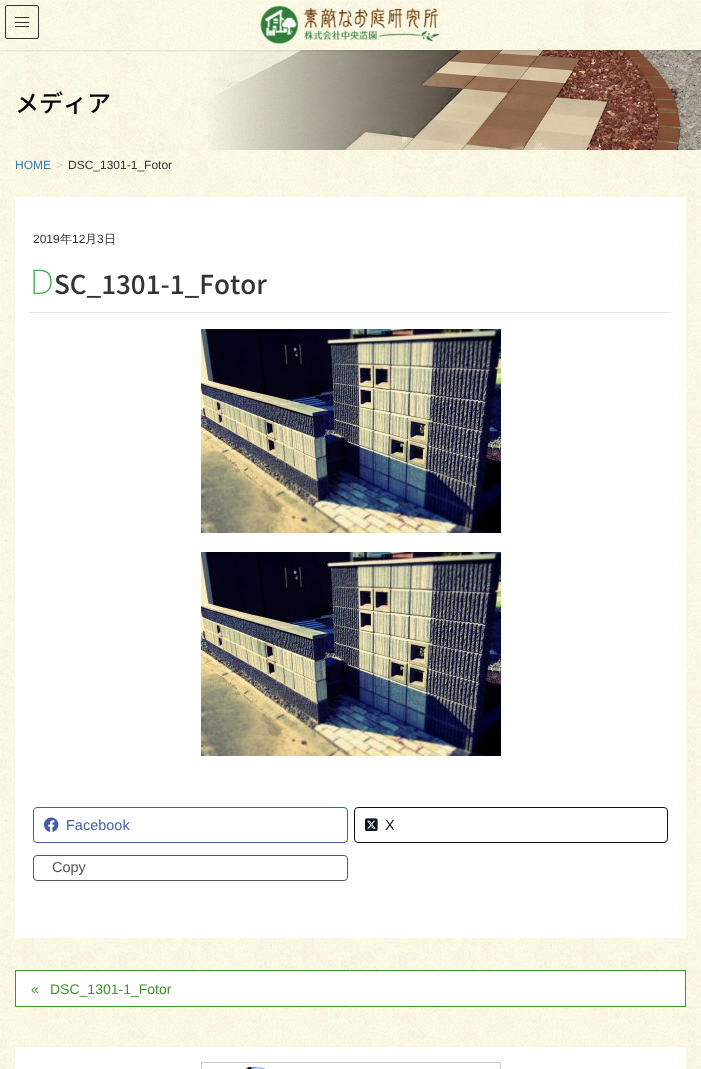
(async () => {
const canvas = document.querySelector("canvas")
canvas.width = 701
canvas.height = 1069
const c = canvas.getContext("2d")
c.miterLimit = 4
c.fontKerning = "none"
function T(s,x,y){c.fillText(s,x,y)}
function R(x,y,w,h){c.fillRect(x,y,w,h)}
async function I(src,x,y,w,h){const img=new Image();img.src=src;await img.decode();c.drawImage(img,x,y,w,h)}
c.fillStyle="#fff"
R(0,0,701,1069)
await I("1.png",0,0,701,1069)
await I("3.png",208,50,493,100)
c.save()
c.beginPath()
c.rect(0,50,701,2)
c.clip()
c.fillStyle="#0000001a"
c.filter="blur(1.5px)"
c.beginPath()
c.rect(0,1,701,50)
c.fill()
c.filter="none"
c.restore()
await I("2.png",260,5,180,39)
c.fillStyle="#333"
R(15,17,14,1)
R(15,22,14,1)
R(15,26,14,1)
c.beginPath()
c.roundRect(5.5,5.5,33,33,1.5)
c.strokeStyle="#333"
c.stroke()
c.font="100 24px Noto Sans TC"
c.fillStyle="#000"
T("メディア",15,112)
c.font="12px Liberation Sans"
c.fillStyle="#337ab7"
T("HOME",15,169)
c.fillStyle="#ccc"
T(">",56,169)
c.fillStyle="#333"
T("DSC_1301-1_Fotor",68,169)
c.fillStyle="#fff"
R(15,197,671,741)
c.fillStyle="#e5e5e5"
R(30,312,641,1)
c.fillStyle="#333"
T("2019",33,243)
c.font="500 12px WenQuanYi Zen Hei"
T("年",60,243)
c.font="12px Liberation Sans"
T("12",72,243)
c.font="500 12px WenQuanYi Zen Hei"
T("月",85,243)
c.font="12px Liberation Sans"
T("3",97,243)
c.font="500 12px WenQuanYi Zen Hei"
T("日",104,243)
c.font="200 34px Noto Sans"
c.fillStyle="#45ad50"
T("D",30,294)
c.font="100 26px Noto Sans TC"
c.fillStyle="#333"
T("SC_1301-1_Fotor",54,294)
await I("4.png",201,329,300,204)
await I("4.png",201,552,300,204)
c.beginPath()
c.roundRect(33.5,807.5,314,35,3.5)
c.strokeStyle="#425dab"
c.stroke()
await I("5.png",44,817,15,15)
c.font="14.5px Liberation Sans"
c.fillStyle="#425dab"
T("Facebook",66,830)
c.beginPath()
c.roundRect(354.5,807.5,313,35,3.5)
c.strokeStyle="#0f1419"
c.stroke()
await I("6.png",365,818,13,13)
c.fillStyle="#0f1419"
T("X",385,830)
c.beginPath()
c.roundRect(33.5,855.5,314,25,3.5)
c.strokeStyle="#555"
c.stroke()
c.fillStyle="#555"
T("Copy",52,872)
c.fillStyle="#fff"
c.beginPath()
c.rect(15.5,970.5,670,36)
c.fill()
c.strokeStyle="#3f932c"
c.stroke()
c.font="14px Liberation Sans"
c.fillStyle="#3f932c"
T("«",31,994)
T("DSC_1301-1_Fotor",50,994)
c.fillStyle="#fff"
R(15,1047,671,22)
await I("7.png",201,1062,300,7)
})()
